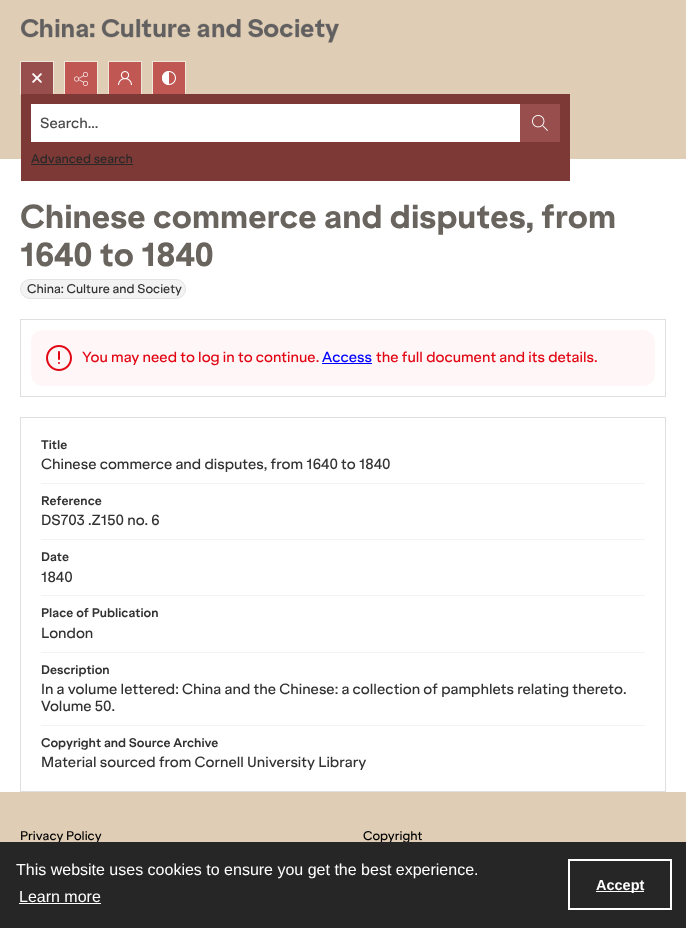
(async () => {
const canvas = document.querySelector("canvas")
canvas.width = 686
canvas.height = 928
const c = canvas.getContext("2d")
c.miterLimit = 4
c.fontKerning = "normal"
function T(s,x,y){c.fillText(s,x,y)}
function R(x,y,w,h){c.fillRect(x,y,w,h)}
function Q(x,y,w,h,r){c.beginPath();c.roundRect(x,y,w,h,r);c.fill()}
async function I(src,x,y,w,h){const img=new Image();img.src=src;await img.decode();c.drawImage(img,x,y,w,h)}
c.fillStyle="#fff"
R(0,0,686,928)
c.fillStyle="#dfceb5"
R(0,0,686,159)
await I("1.png",21,19,318,24)
c.strokeStyle="#efe7da"
c.strokeRect(64.5,61.5,33,33)
c.fillStyle="#c05753"
R(65,62,32,32)
await I("2.png",74,72,14,14)
c.strokeRect(108.5,61.5,33,33)
R(109,62,32,32)
await I("3.png",118,71,14,14)
c.strokeRect(152.5,61.5,33,33)
R(153,62,32,32)
await I("4.png",162,71,14,14)
c.strokeRect(20.5,61.5,33,33)
c.fillStyle="#994e4e"
R(21,62,32,32)
await I("5.png",32,73,10,10)
c.fillStyle="#7d3936"
R(21,94,549,87)
c.fillStyle="#fff"
R(31,104,489,38)
c.font="500 14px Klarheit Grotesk"
c.fillStyle="#4a4a4a"
T("Search...",40,128)
c.fillStyle="#994e4e"
R(520,104,40,38)
await I("6.png",532,115,16,16)
c.font="500 12px Klarheit Grotesk"
c.fillStyle="#292929"
T("Advanced search",31,163)
R(31,164,102,1)
c.font="800 31.6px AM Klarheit"
c.fillStyle="#69645e"
T("Chinese commerce and disputes, from",20,228)
T("1640 to 1840",20,266)
c.fillStyle="#f3f3f3"
c.beginPath()
c.roundRect(20.5,279.5,165,19,9.5)
c.fill()
c.strokeStyle="#e3e3e3"
c.stroke()
c.font="500 12px Klarheit Grotesk"
c.fillStyle="#323232"
T("China: Culture and Society",27,293)
c.strokeStyle="#dfdfdf"
c.strokeRect(20.5,319.5,645,77)
c.fillStyle="#fff6f7"
Q(31,330,624,56,12)
await I("7.png",46,345,26,26)
c.font="500 14px Klarheit Grotesk"
c.fillStyle="#e20714"
T("You may need to log in to continue.",82,362)
c.fillStyle="#00f"
T("Access",322,362)
R(322,363,50,1)
c.fillStyle="#e20714"
T("the full document and its details.",376,362)
c.strokeRect(20.5,417.5,645,374)
c.font="bold 12px Klarheit Grotesk"
c.fillStyle="#323232"
T("Title",41,449)
c.font="500 14px Klarheit Grotesk"
T("Chinese commerce and disputes, from 1640 to 1840",41,469)
c.fillStyle="#f3f3f3"
R(41,483,604,1)
c.font="bold 12px Klarheit Grotesk"
c.fillStyle="#323232"
T("Reference",41,505)
c.font="500 14px Klarheit Grotesk"
T("DS703 .Z150 no. 6",41,525)
c.fillStyle="#f3f3f3"
R(41,539,604,1)
c.font="bold 12px Klarheit Grotesk"
c.fillStyle="#323232"
T("Date",41,561)
c.font="500 14px Klarheit Grotesk"
T("1840",41,582)
c.fillStyle="#f3f3f3"
R(41,595,604,1)
c.font="bold 12px Klarheit Grotesk"
c.fillStyle="#323232"
T("Place of Publication",41,617)
c.font="500 14px Klarheit Grotesk"
T("London",41,638)
c.fillStyle="#f3f3f3"
R(41,652,604,1)
c.font="bold 12px Klarheit Grotesk"
c.fillStyle="#323232"
T("Description",41,674)
c.font="500 14px Klarheit Grotesk"
T("In a volume lettered: China and the Chinese: a collection of pamphlets relating thereto.",41,694)
T("Volume 50.",41,711)
c.fillStyle="#f3f3f3"
R(41,725,604,1)
c.font="bold 12px Klarheit Grotesk"
c.fillStyle="#323232"
T("Copyright and Source Archive",41,747)
c.font="500 14px Klarheit Grotesk"
T("Material sourced from Cornell University Library",41,767)
c.fillStyle="#dfceb5"
R(0,792,686,50)
c.font="500 12px Klarheit Grotesk"
c.fillStyle="#000"
T("Privacy Policy",20,840)
T("Copyright",363,840)
c.fillStyle="#262626"
R(0,842,686,86)
c.font="16px Liberation Sans"
c.fillStyle="#fff"
T("This website uses cookies to ensure you get the best experience.",16,875)
T("Learn more",19,902)
R(19,903,82,1)
c.strokeStyle="#fff"
c.lineWidth=2
c.strokeRect(569,860,102,49)
R(596,891,48,1)
c.font="bold 14.5px Liberation Sans"
T("Accept",596,890)
})()
